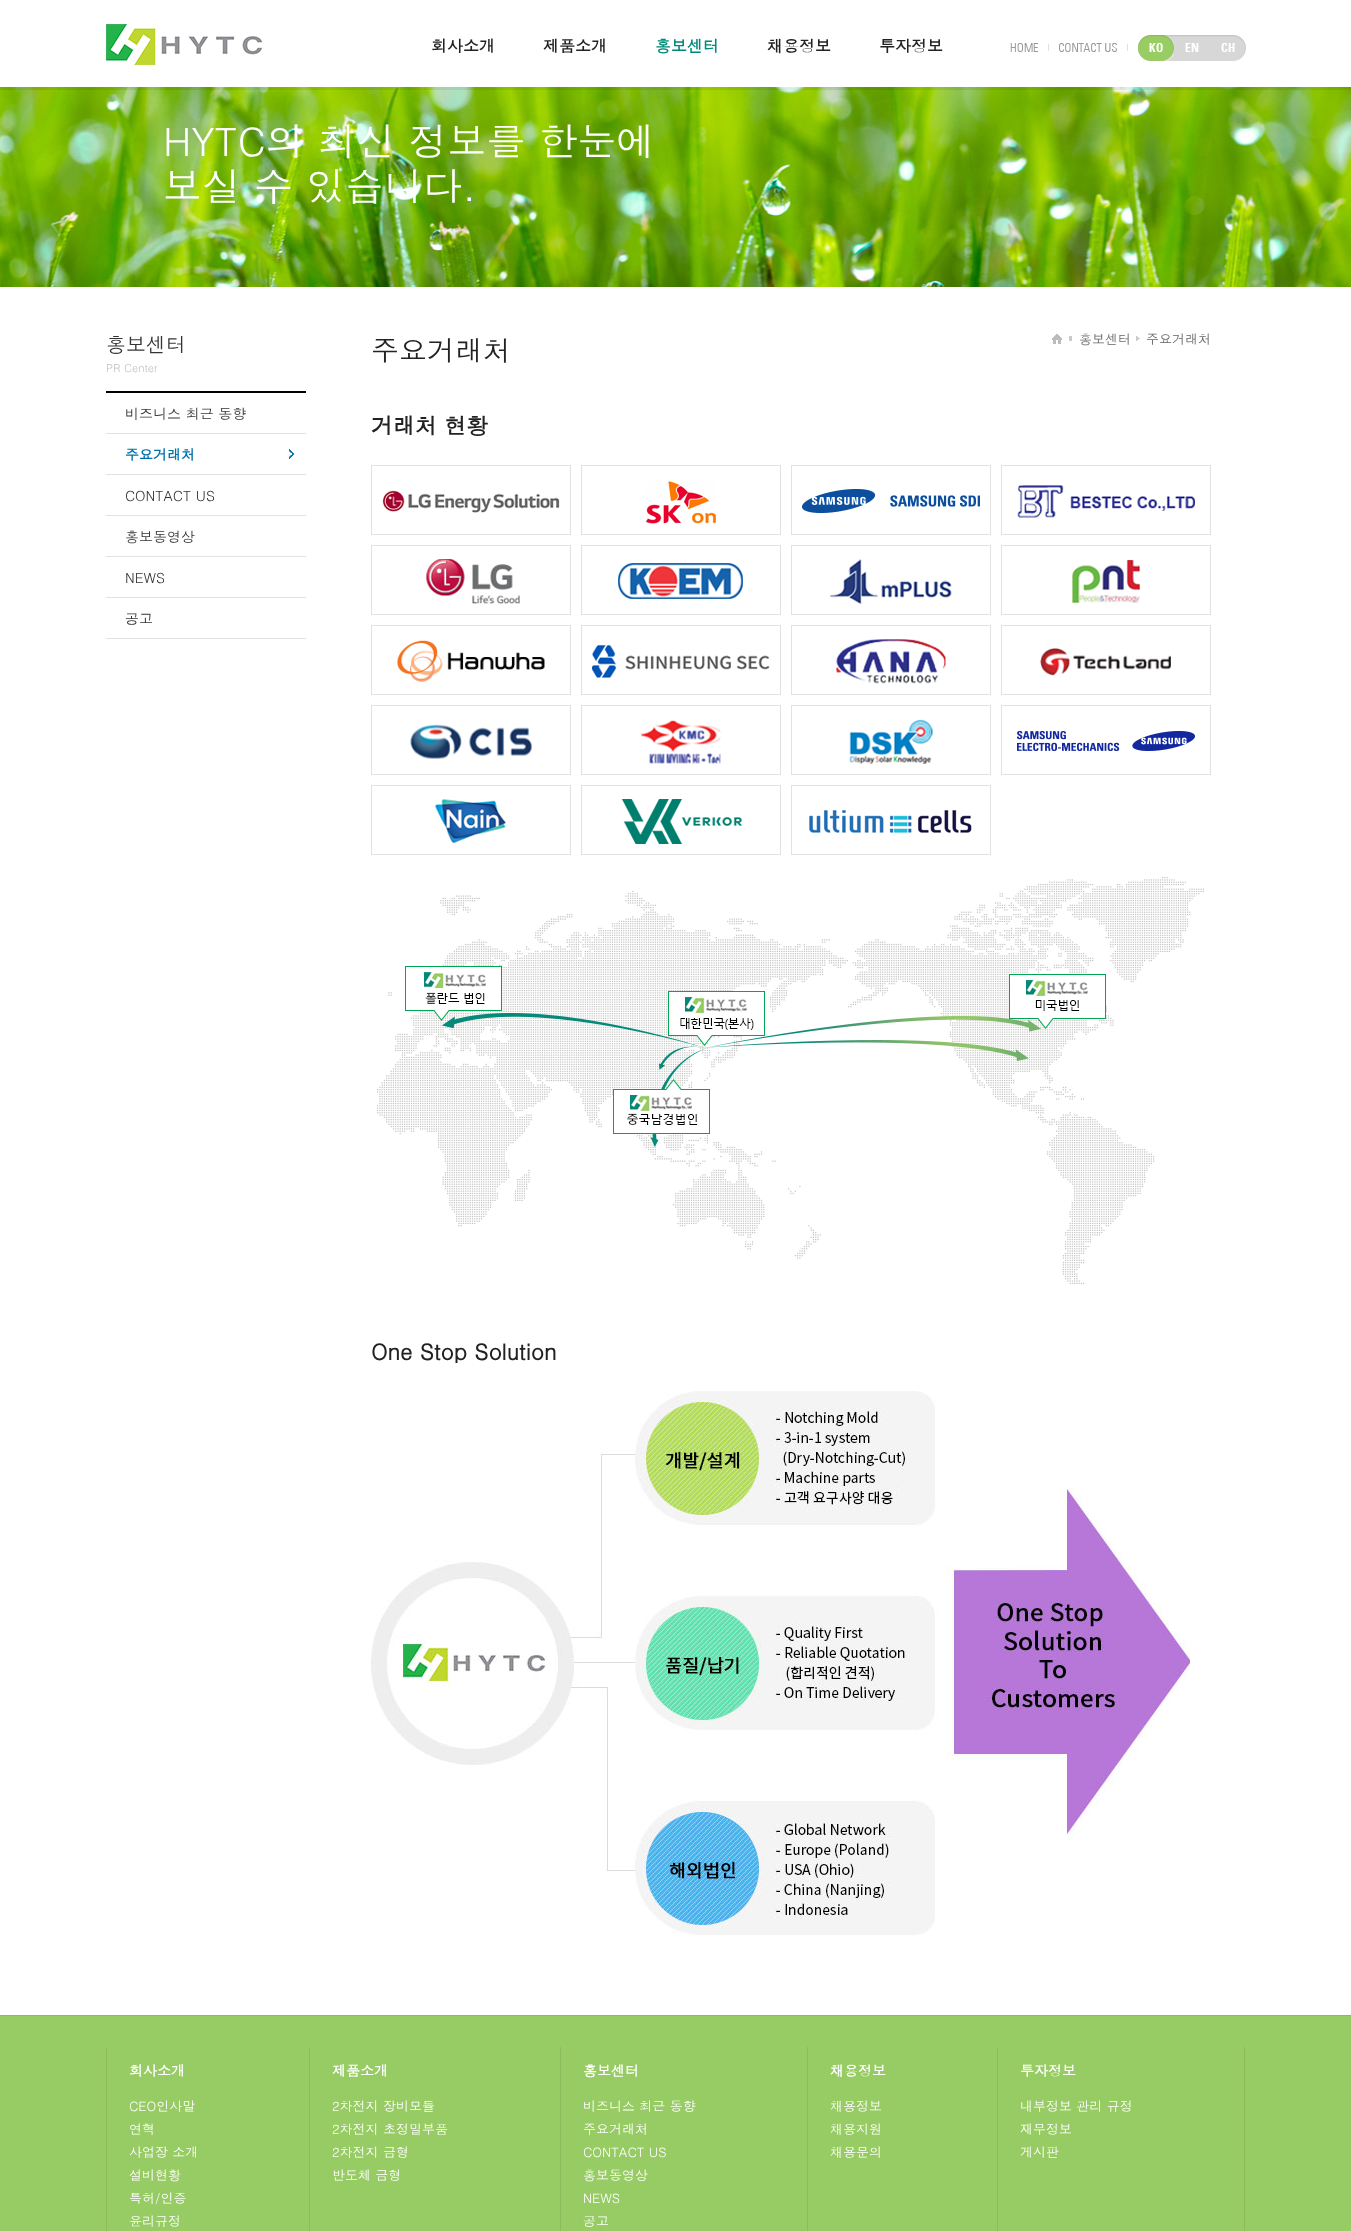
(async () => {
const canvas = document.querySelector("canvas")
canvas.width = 1351
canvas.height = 2231
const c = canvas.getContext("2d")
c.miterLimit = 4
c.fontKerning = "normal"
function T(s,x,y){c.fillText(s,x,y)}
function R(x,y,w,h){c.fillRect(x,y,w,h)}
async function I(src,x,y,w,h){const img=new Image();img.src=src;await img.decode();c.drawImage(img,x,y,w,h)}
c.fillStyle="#fff"
R(0,0,1351,2231)
await I("1.png",106,24,156,41)
c.font="bold 16px Dotum"
c.fillStyle="#222"
T("회사소개",431,52)
T("제품소개",543,52)
c.fillStyle="#008a79"
T("홍보센터",655,52)
c.fillStyle="#222"
T("채용정보",767,52)
T("투자정보",879,52)
c.fillStyle="#e1e1e1"
R(1048,44,1,7)
await I("2.png",1010,43,28,9)
R(1127,44,1,7)
await I("3.png",1059,43,58,9)
await I("4.png",1138,35,96,26)
await I("5.png",1234,35,12,26)
await I("6.png",1138,35,36,26)
await I("7.png",1149,43,14,9)
await I("8.png",1185,43,14,9)
await I("9.png",1221,43,14,9)
await I("10.png",0,87,1351,200)
c.fillStyle="#00000012"
R(0,87,1351,3)
c.font="39px Dotum"
c.fillStyle="#fff"
T("HYTC의 최신 정보를 한눈에",163,156)
T("보실 수 있습니다.",163,201)
c.fillStyle="#000"
R(106,391,200,2)
c.font="20px Dotum"
c.fillStyle="#343434"
T("홍보센터",106,352)
c.font="11px Dotum"
c.fillStyle="#bfbfbf"
T("PR Center",106,372)
c.fillStyle="#e2e2e2"
R(106,433,200,1)
c.font="14px Dotum"
c.fillStyle="#343434"
T("비즈니스 최근 동향",125,419)
c.fillStyle="#e2e2e2"
R(106,474,200,1)
c.font="bold 14px Dotum"
c.fillStyle="#0071a9"
T("주요거래처",125,460)
await I("11.png",289,449,5,10)
c.fillStyle="#e2e2e2"
R(106,515,200,1)
c.font="14px Dotum"
c.fillStyle="#343434"
T("CONTACT US",125,501)
c.fillStyle="#e2e2e2"
R(106,556,200,1)
c.fillStyle="#343434"
T("홍보동영상",125,542)
c.fillStyle="#e2e2e2"
R(106,597,200,1)
c.fillStyle="#343434"
T("NEWS",125,583)
c.fillStyle="#e2e2e2"
R(106,638,200,1)
c.fillStyle="#343434"
T("공고",125,624)
c.font="28px Dotum"
c.fillStyle="#222"
T("주요거래처",371,361)
await I("12.png",1052,334,10,10)
c.fillStyle="#cacaca"
R(1069,336,3,5)
c.font="13px Dotum"
c.fillStyle="#666"
T("홍보센터",1079,344)
await I("13.png",1136,336,4,5)
T("주요거래처",1146,344)
c.font="bold 22px Dotum"
c.fillStyle="#222"
T("거래처 현황",371,434)
await I("14.png",377,877,827,407)
c.strokeStyle="#e2e2e2"
c.strokeRect(371.5,465.5,199,69)
await I("15.png",382,490,178,23)
c.strokeRect(581.5,465.5,199,69)
await I("16.png",646,481,70,43)
c.strokeRect(791.5,465.5,199,69)
await I("17.png",802,489,178,24)
c.strokeRect(1001.5,465.5,209,69)
await I("18.png",1017,485,178,33)
c.strokeRect(371.5,545.5,199,69)
await I("19.png",426,559,94,45)
c.strokeRect(581.5,545.5,199,69)
await I("20.png",618,563,125,36)
c.strokeRect(791.5,545.5,199,69)
await I("21.png",830,559,122,45)
c.strokeRect(1001.5,545.5,209,69)
await I("22.png",1072,560,68,43)
c.strokeRect(371.5,625.5,199,69)
await I("23.png",397,640,148,42)
c.strokeRect(581.5,625.5,199,69)
await I("24.png",592,645,178,33)
c.strokeRect(791.5,625.5,199,69)
await I("25.png",836,639,110,45)
c.strokeRect(1001.5,625.5,209,69)
await I("26.png",1040,648,131,28)
c.strokeRect(371.5,705.5,199,69)
await I("27.png",410,724,122,35)
c.strokeRect(581.5,705.5,199,69)
await I("28.png",640,720,81,44)
c.strokeRect(791.5,705.5,199,69)
await I("29.png",849,719,84,45)
c.strokeRect(1001.5,705.5,209,69)
await I("30.png",1017,731,178,20)
c.strokeRect(371.5,785.5,199,69)
await I("31.png",435,799,71,45)
c.strokeRect(581.5,785.5,199,69)
await I("32.png",621,799,121,45)
c.strokeRect(791.5,785.5,199,69)
await I("33.png",809,810,163,23)
T("One Stop Solution",371,1360)
await I("34.png",371,1391,819,544)
c.fillStyle="#97cb63"
R(0,2016,1351,215)
c.fillStyle="#8bbb5b"
R(0,2015,1351,1)
R(309,2047,1,184)
R(106,2047,1,184)
c.font="bold 14px Dotum"
c.fillStyle="#fff"
T("회사소개",129,2076)
c.font="13px Dotum"
T("CEO인사말",129,2111)
T("연혁",129,2134)
T("사업장 소개",129,2157)
T("설비현황",129,2180)
T("특허/인증",129,2203)
T("윤리규정",129,2226)
c.fillStyle="#8bbb5b"
R(560,2047,1,184)
c.font="bold 14px Dotum"
c.fillStyle="#fff"
T("제품소개",332,2076)
c.font="13px Dotum"
T("2차전지 장비모듈",332,2111)
T("2차전지 초정밀부품",332,2134)
T("2차전지 금형",332,2157)
T("반도체 금형",332,2180)
c.fillStyle="#8bbb5b"
R(807,2047,1,184)
c.font="bold 14px Dotum"
c.fillStyle="#fff"
T("홍보센터",583,2076)
c.font="13px Dotum"
T("비즈니스 최근 동향",583,2111)
T("주요거래처",583,2134)
T("CONTACT US",583,2157)
T("홍보동영상",583,2180)
T("NEWS",583,2203)
T("공고",583,2226)
c.fillStyle="#8bbb5b"
R(997,2047,1,184)
c.font="bold 14px Dotum"
c.fillStyle="#fff"
T("채용정보",830,2076)
c.font="13px Dotum"
T("채용정보",830,2111)
T("채용지원",830,2134)
T("채용문의",830,2157)
c.fillStyle="#8bbb5b"
R(1244,2047,1,184)
c.font="bold 14px Dotum"
c.fillStyle="#fff"
T("투자정보",1020,2076)
c.font="13px Dotum"
T("내부정보 관리 규정",1020,2111)
T("재무정보",1020,2134)
T("게시판",1020,2157)
})()
